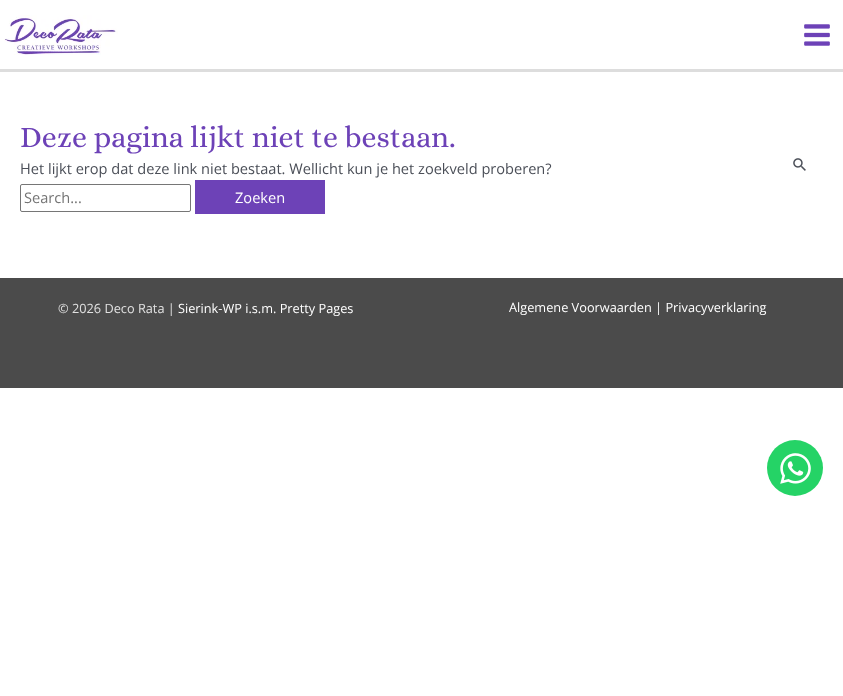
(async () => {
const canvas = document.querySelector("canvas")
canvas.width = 843
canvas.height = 696
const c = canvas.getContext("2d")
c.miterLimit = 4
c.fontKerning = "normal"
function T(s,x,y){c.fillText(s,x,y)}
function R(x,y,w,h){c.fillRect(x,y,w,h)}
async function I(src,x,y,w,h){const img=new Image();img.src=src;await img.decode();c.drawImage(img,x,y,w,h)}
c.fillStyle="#fff"
R(0,0,843,696)
c.fillStyle="#ddd"
R(0,69,843,3)
await I("1.png",4,15,114,40)
await I("2.png",804,24,26,22)
c.font="30px Alice"
c.fillStyle="#6d42b7"
T("Deze pagina lijkt niet te bestaan.",20,147)
c.font="14.6px Open Sans"
c.fillStyle="#4b4f58"
T("Het lijkt erop dat deze link niet bestaat. Wellicht kun je het zoekveld proberen?",20,174)
await I("3.png",793,158,13,13)
c.beginPath()
c.roundRect(20.5,184.5,170,27,1.5)
c.strokeStyle="#767676"
c.stroke()
c.fillStyle="#757575"
T("Search...",24,203)
c.fillStyle="#6d42b7"
R(195,180,130,34)
c.fillStyle="#fff"
T("Zoeken",235,203)
c.fillStyle="#4b4b4b"
R(0,278,843,110)
c.font="12.75px Open Sans"
c.fillStyle="#e1e1e1"
T("© 2026 Deco Rata |",58,313)
c.fillStyle="#fff"
T("Sierink-WP i.s.m. Pretty Pages",178,313)
T("Algemene Voorwaarden | Privacyverklaring",509,312)
c.fillStyle="#25d366"
c.beginPath()
c.arc(795,468,28,0,7)
c.fill()
await I("4.png",780,453,31,31)
})()
